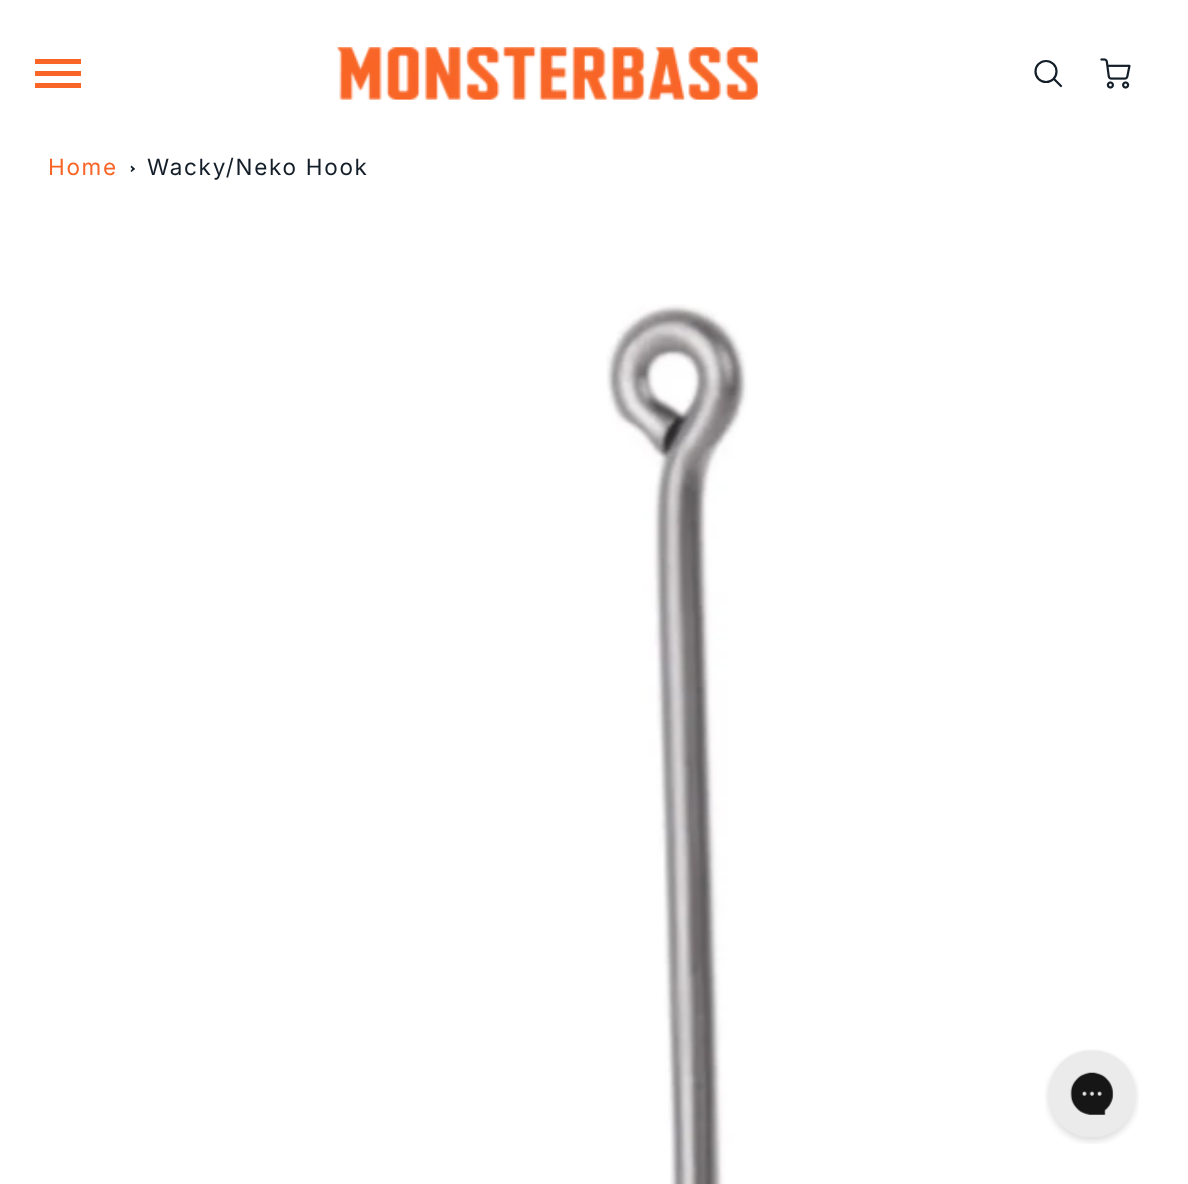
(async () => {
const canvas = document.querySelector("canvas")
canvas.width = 1188
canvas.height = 1184
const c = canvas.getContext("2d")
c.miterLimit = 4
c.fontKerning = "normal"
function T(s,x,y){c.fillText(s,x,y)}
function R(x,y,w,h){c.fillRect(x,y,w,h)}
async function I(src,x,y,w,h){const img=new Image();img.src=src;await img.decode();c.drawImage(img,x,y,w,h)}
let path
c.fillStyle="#fff"
R(0,0,1188,1184)
c.fillStyle="#f86526"
R(35,59,46,5)
R(35,71,46,5)
R(35,83,46,5)
await I("1.png",337,47,421,53)
c.beginPath()
c.arc(1046,71.5,10.5,0,7)
c.strokeStyle="#131e29"
c.lineWidth=2.2
c.stroke()
path = new Path2D("M1061 86l-7-7")
c.lineCap="round"
c.lineJoin="round"
c.stroke(path)
await I("2.png",1100,58,31,31)
c.letterSpacing="1.7px"
c.font="22.5px Inter"
T("Home",48,175)
c.fillStyle="#131e29"
path = new Path2D("M131.5 165.5l3.5 3.5l-1.5 1l-3-3z")
c.fill(path)
path = new Path2D("M133.5 167.5l1.5 1.5l-3.5 3l-1-1z")
c.fill(path)
T("Wacky/Neko Hook",147,175)
await I("3.png",606,304,142,880)
await I("4.png",1045,1049,94,95)
})()
